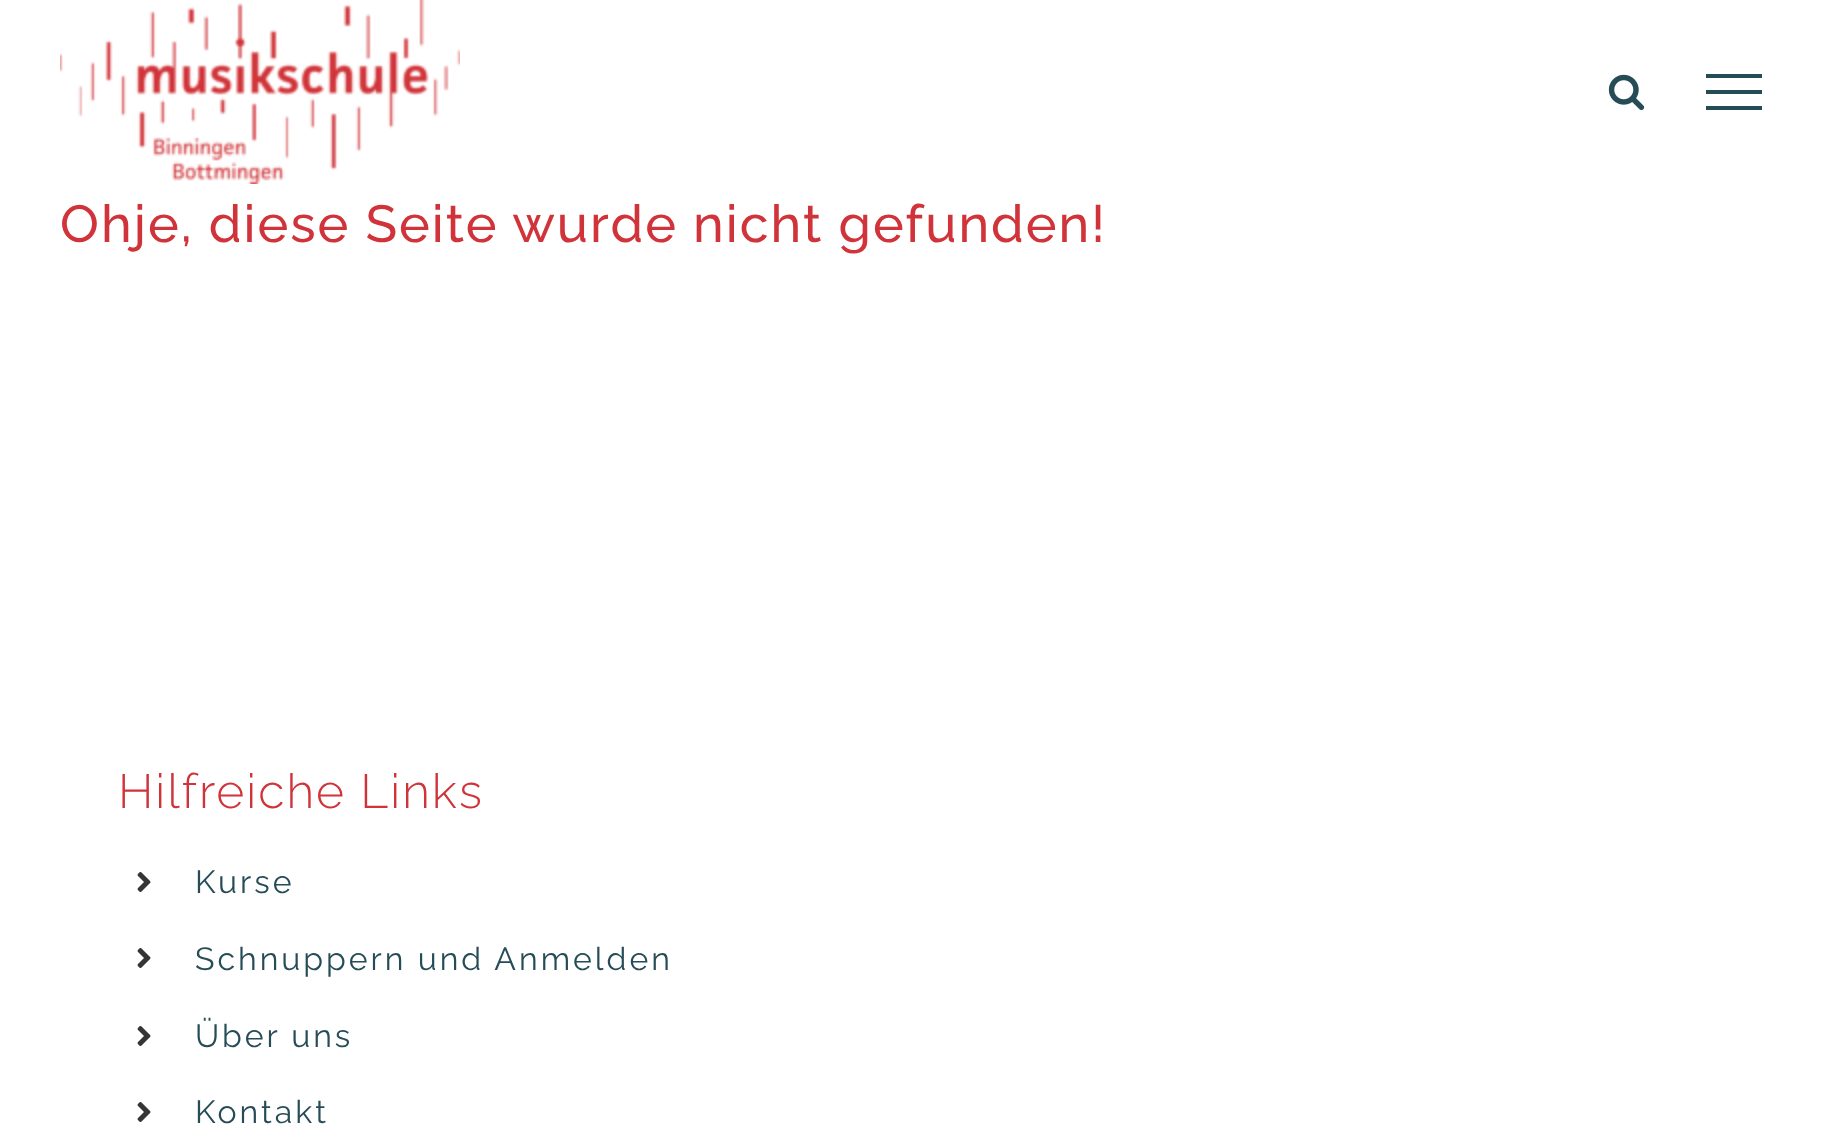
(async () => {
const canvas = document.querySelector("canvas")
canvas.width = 1821
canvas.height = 1132
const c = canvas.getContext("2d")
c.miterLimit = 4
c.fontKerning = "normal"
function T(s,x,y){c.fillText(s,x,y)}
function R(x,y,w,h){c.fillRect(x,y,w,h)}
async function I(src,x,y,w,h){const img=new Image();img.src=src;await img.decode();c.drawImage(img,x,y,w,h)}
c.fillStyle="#fff"
R(0,0,1821,1132)
await I("1.png",60,0,400,184)
await I("2.png",1608,74,37,37)
c.fillStyle="#264c57"
R(1706,74,56,4)
R(1706,90,56,4)
R(1706,106,56,4)
c.letterSpacing="2px"
c.font="500 52px Raleway"
c.fillStyle="#d0343a"
T("Ohje, diese Seite wurde nicht gefunden!",60,242)
c.font="300 48px Raleway"
T("Hilfreiche Links",118,808)
await I("3.png",137,872,14,20)
c.letterSpacing="3px"
c.font="32px Raleway"
c.fillStyle="#264c57"
T("Kurse",195,893)
await I("3.png",137,948,14,20)
T("Schnuppern und Anmelden",195,970)
await I("3.png",137,1026,14,20)
T("Über uns",195,1047)
await I("3.png",137,1102,14,20)
T("Kontakt",195,1123)
})()
